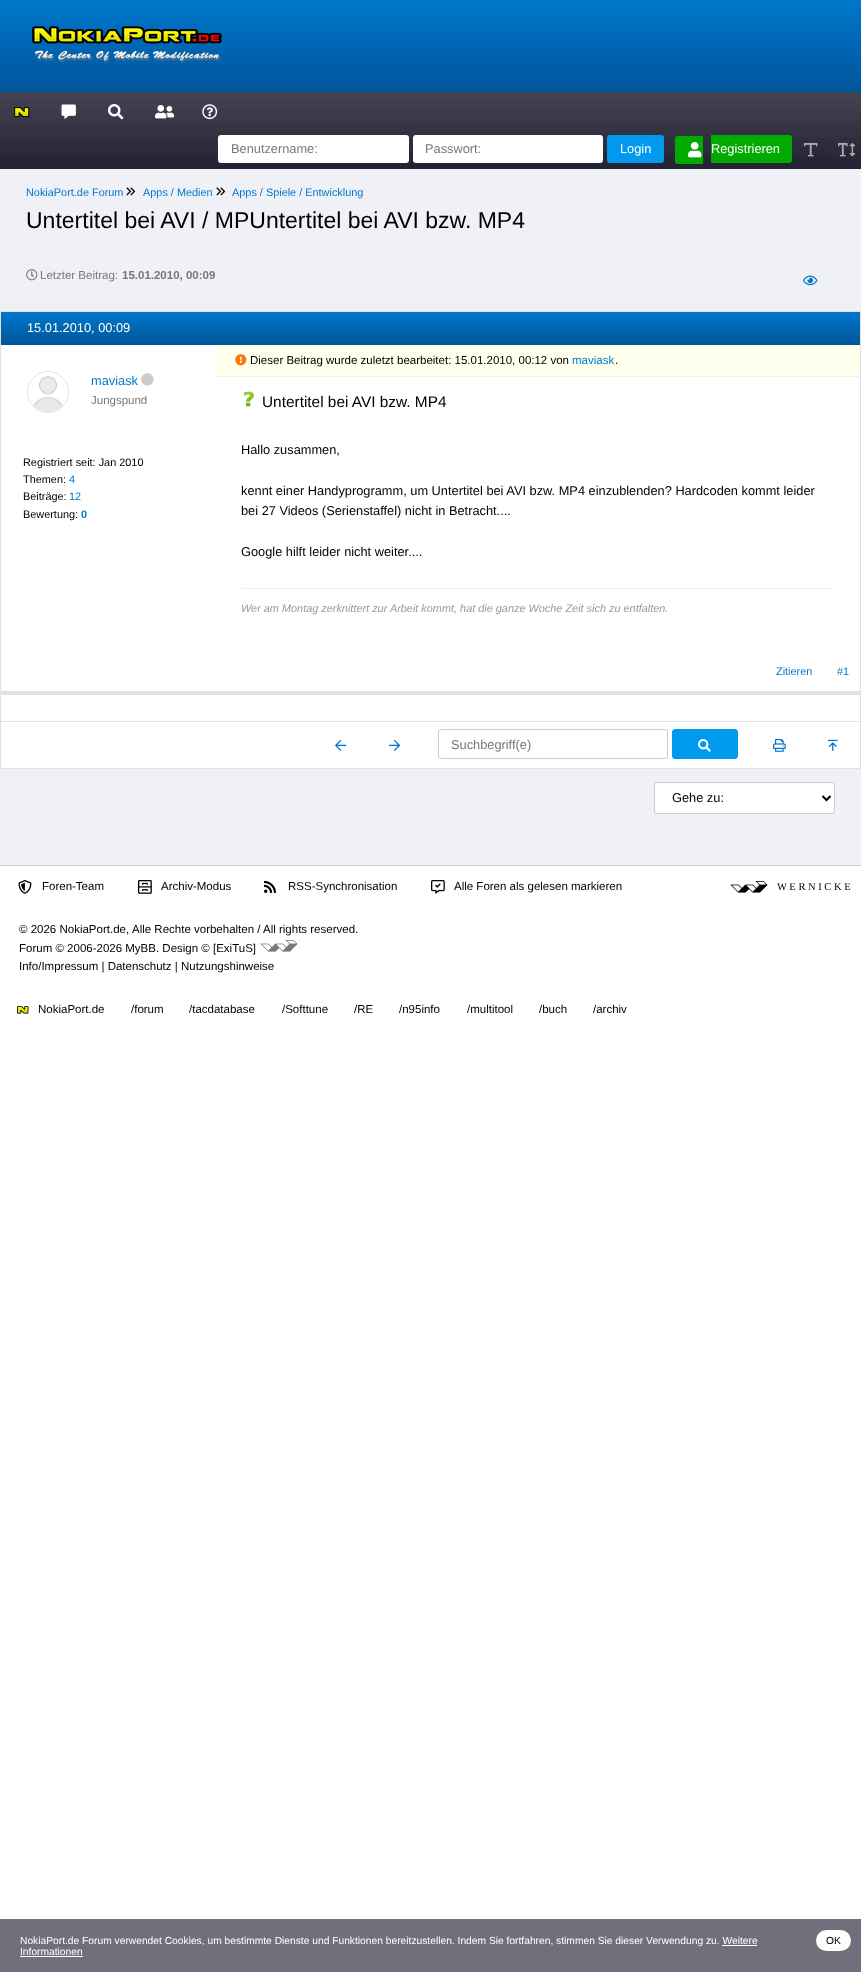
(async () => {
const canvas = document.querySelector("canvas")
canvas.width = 861
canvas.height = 1972
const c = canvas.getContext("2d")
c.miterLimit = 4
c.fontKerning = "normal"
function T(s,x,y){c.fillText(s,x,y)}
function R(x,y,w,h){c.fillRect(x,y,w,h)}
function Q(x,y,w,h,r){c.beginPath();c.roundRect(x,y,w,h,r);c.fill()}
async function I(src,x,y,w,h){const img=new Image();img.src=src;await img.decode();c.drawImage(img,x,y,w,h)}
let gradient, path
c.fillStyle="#fff"
R(0,0,861,1972)
c.fillStyle="#f0f0f7"
R(0,169,861,696)
gradient = c.createLinearGradient(431,0,431,92)
gradient.addColorStop(0,"#07c")
gradient.addColorStop(1,"#059")
c.fillStyle = gradient
R(0,0,861,92)
await I("1.png",32,26,190,38)
gradient = c.createLinearGradient(431,92,431,169)
gradient.addColorStop(0,"#445")
gradient.addColorStop(1,"#223")
c.fillStyle = gradient
R(0,92,861,77)
await I("2.png",14,107,16,11)
await I("3.png",61,104,15,15)
await I("4.png",108,104,16,16)
await I("5.png",155,105,20,14)
await I("6.png",202,104,16,16)
c.fillStyle="#fff"
Q(218,135,191,28,3)
c.font="12.8px Liberation Sans"
c.fillStyle="#777"
T("Benutzername:",231,153)
c.fillStyle="#fff"
Q(413,135,190,28,3)
c.fillStyle="#777"
T("Passwort:",425,153)
c.fillStyle="#09e"
Q(607,135,57,28,3)
c.fillStyle="#fff"
T("Login",620,153)
c.fillStyle="#0a0"
c.beginPath()
c.roundRect(675,136,28,28,[3,0,0,3])
c.fill()
await I("7.png",688,142,14,16)
c.beginPath()
c.roundRect(711,135,81,28,[0,3,3,0])
c.fill()
c.fillStyle="#fff"
T("Registrieren",711,153)
await I("8.png",804,142,14,15)
await I("9.png",838,142,18,15)
c.font="10.9px Liberation Sans"
c.fillStyle="#07c"
T("NokiaPort.de Forum",26,196)
await I("10.png",126,187,10,9)
T("Apps / Medien",143,196)
await I("10.png",216,187,10,9)
T("Apps / Spiele / Entwicklung",232,196)
c.font="23px Liberation Sans"
c.fillStyle="#000"
T("Untertitel bei AVI / MPUntertitel bei AVI bzw. MP4",26,228)
await I("11.png",26,269,12,12)
c.font="11.5px Liberation Sans"
c.fillStyle="#777"
T("Letzter Beitrag:",40,279)
c.font="bold 11.5px Liberation Sans"
T("15.01.2010, 00:09",122,279)
await I("12.png",803,275,15,11)
c.fillStyle="#fff"
R(1,345,859,346)
c.strokeStyle="#e0e0e7"
c.strokeRect(.5,311.5,860,380)
gradient = c.createLinearGradient(431,312,431,345)
gradient.addColorStop(0,"#07c")
gradient.addColorStop(1,"#059")
c.fillStyle = gradient
R(1,312,859,33)
c.font="12.8px Liberation Sans"
c.fillStyle="#fff"
T("15.01.2010, 00:09",27,332)
c.beginPath()
c.arc(48,392,20.5,0,7)
c.stroke()
await I("13.png",28,372,40,40)
c.fillStyle="#07c"
T("maviask",91,385)
await I("14.png",141,373,13,13)
c.font="11.5px Liberation Sans"
c.fillStyle="#777"
T("Jungspund",91,404)
c.font="10.9px Liberation Sans"
c.fillStyle="#000"
T("Registriert seit: Jan 2010",23,466)
T("Themen:",23,483)
c.fillStyle="#07c"
T("4",69,483)
c.fillStyle="#000"
T("Beiträge:",23,500)
c.fillStyle="#07c"
T("12",69,500)
c.fillStyle="#000"
T("Bewertung:",23,518)
c.font="bold 10.9px Liberation Sans"
c.fillStyle="#07c"
T("0",81,518)
c.fillStyle="#ffe"
R(216,345,644,31)
c.fillStyle="#f0f0fc"
R(216,376,644,1)
await I("15.png",235,354,12,12)
c.font="11.5px Liberation Sans"
c.fillStyle="#000"
T("Dieser Beitrag wurde zuletzt bearbeitet: 15.01.2010, 00:12 von",250,364)
c.fillStyle="#07c"
T("maviask",572,364)
c.fillStyle="#000"
T(".",615,364)
await I("16.png",244,391,10,16)
c.font="15.4px Liberation Sans"
T("Untertitel bei AVI bzw. MP4",262,407)
c.font="12.8px Liberation Sans"
T("Hallo zusammen,",241,454)
T("kennt einer Handyprogramm, um Untertitel bei AVI bzw. MP4 einzublenden? Hardcoden kommt leider",241,495)
T("bei 27 Videos (Serienstaffel) nicht in Betracht....",241,515)
T("Google hilft leider nicht weiter....",241,556)
c.fillStyle="#f0f0fc"
R(241,588,593,1)
c.font="italic 10.9px Liberation Sans"
c.fillStyle="#999"
T("Wer am Montag zerknittert zur Arbeit kommt, hat die ganze Woche Zeit sich zu entfalten.",241,612)
c.font="10.9px Liberation Sans"
c.fillStyle="#07c"
T("Zitieren",776,675)
T("#1",837,675)
c.fillStyle="#e0e0e7"
R(0,692,861,2)
c.fillStyle="#fff"
c.beginPath()
c.rect(.5,694.5,860,74)
c.fill()
c.stroke()
c.fillStyle="#e0e0e7"
R(1,721,859,1)
await I("17.png",335,739,12,12)
await I("18.png",389,739,12,12)
c.beginPath()
c.roundRect(438.5,729.5,229,29,2.5)
c.strokeStyle="#ccc"
c.stroke()
c.font="12.8px Liberation Sans"
c.fillStyle="#777"
T("Suchbegriff(e)",451,749)
c.fillStyle="#09e"
c.beginPath()
c.roundRect(672.5,729.5,65,29,2.5)
c.fill()
c.strokeStyle="#09e"
c.stroke()
await I("19.png",698,739,13,13)
await I("20.png",773,739,13,13)
await I("21.png",828,739,10,12)
c.fillStyle="#fff"
c.beginPath()
c.roundRect(654.5,782.5,180,31,2.5)
c.fill()
c.strokeStyle="#ccc"
c.stroke()
path = new Path2D("M822.5 796l4 4l4-4")
c.strokeStyle="#000"
c.lineWidth=2
c.stroke(path)
c.fillStyle="#000"
T("Gehe zu:",672,802)
c.fillStyle="#ccc"
R(0,865,861,1)
await I("22.png",18,880,14,14)
c.font="11.5px Liberation Sans"
c.fillStyle="#000"
T("Foren-Team",42,890)
await I("23.png",138,880,14,14)
T("Archiv-Modus",161,890)
await I("24.png",264,880,13,13)
T("RSS-Synchronisation",288,890)
await I("25.png",431,880,14,14)
T("Alle Foren als gelesen markieren",454,890)
await I("26.png",730,881,38,12)
c.font="10.5px Liberation Serif"
T("W E R N I C K E",777,890)
c.font="11.5px Liberation Sans"
T("© 2026 NokiaPort.de,",19,933)
T("Alle Rechte vorbehalten /",132,933)
T("All rights reserved.",263,933)
T("Forum © 2006-2026 MyBB. Design © [ExiTuS]",19,952)
await I("27.png",260,940,38,12)
T("Info/Impressum | Datenschutz | Nutzungshinweise",19,970)
await I("28.png",17,1006,12,8)
T("NokiaPort.de",38,1013)
T("/forum",131,1013)
T("/tacdatabase",189,1013)
T("/Softtune",282,1013)
T("/RE",354,1013)
T("/n95info",399,1013)
T("/multitool",467,1013)
T("/buch",539,1013)
T("/archiv",593,1013)
c.fillStyle="#70707c"
R(0,1919,861,53)
c.font="10.25px Liberation Sans"
c.fillStyle="#fff"
T("NokiaPort.de Forum verwendet Cookies, um bestimmte Dienste und Funktionen bereitzustellen. Indem Sie fortfahren, stimmen Sie dieser Verwendung zu. Weitere",20,1944)
T("Informationen",20,1955)
R(722,1945,35,1)
R(20,1956,63,1)
Q(816,1930,35,21,10.5)
c.fillStyle="#000"
T("OK",826,1944)
})()
